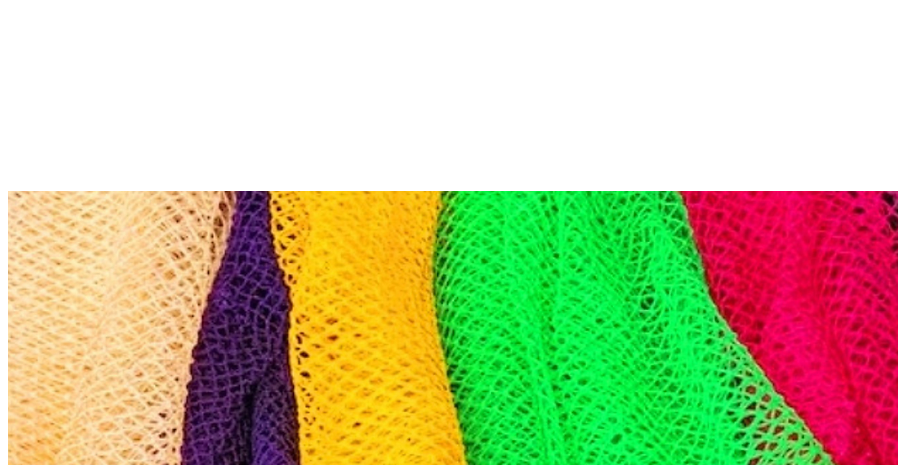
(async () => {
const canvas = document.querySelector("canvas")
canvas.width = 898
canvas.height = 465
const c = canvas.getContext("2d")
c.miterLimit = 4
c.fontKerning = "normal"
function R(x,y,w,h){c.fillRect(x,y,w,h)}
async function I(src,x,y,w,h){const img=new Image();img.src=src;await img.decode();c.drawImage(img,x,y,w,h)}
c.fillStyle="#fff"
R(0,0,898,465)
await I("1.png",8,191,890,274)
})()
